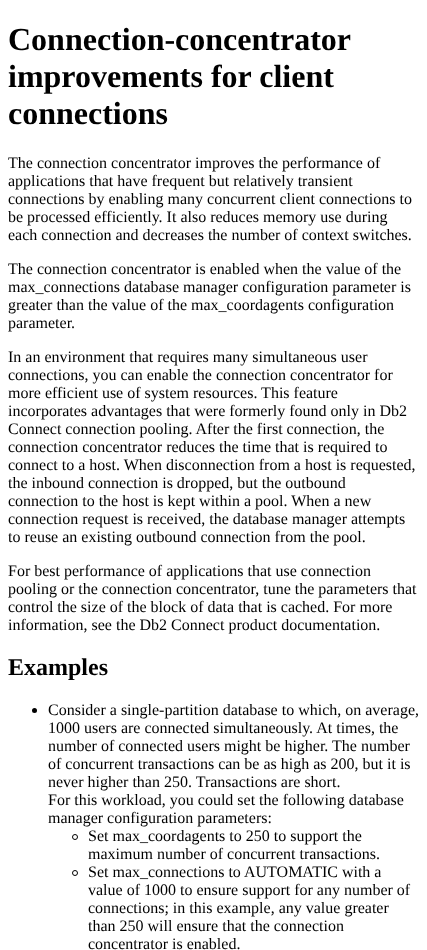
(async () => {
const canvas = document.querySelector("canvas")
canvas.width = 427
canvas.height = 950
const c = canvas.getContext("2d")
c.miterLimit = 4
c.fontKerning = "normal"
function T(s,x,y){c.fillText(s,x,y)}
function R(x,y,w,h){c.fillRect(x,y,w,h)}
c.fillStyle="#fff"
R(0,0,427,950)
c.font="bold 32px Liberation Serif"
c.fillStyle="#000"
T("Connection-concentrator",8,50)
T("improvements for client",8,87)
T("connections",8,124)
c.font="16px Liberation Serif"
T("The connection concentrator improves the performance of",8,168)
T("applications that have frequent but relatively transient",8,186)
T("connections by enabling many concurrent client connections to",8,204)
T("be processed efficiently. It also reduces memory use during",8,222)
T("each connection and decreases the number of context switches.",8,240)
T("The connection concentrator is enabled when the value of the",8,274)
T("max_connections database manager configuration parameter is",8,292)
T("greater than the value of the max_coordagents configuration",8,310)
T("parameter.",8,328)
T("In an environment that requires many simultaneous user",8,362)
T("connections, you can enable the connection concentrator for",8,380)
T("more efficient use of system resources. This feature",8,398)
T("incorporates advantages that were formerly found only in Db2",8,416)
T("Connect connection pooling. After the first connection, the",8,434)
T("connection concentrator reduces the time that is required to",8,452)
T("connect to a host. When disconnection from a host is requested,",8,470)
T("the inbound connection is dropped, but the outbound",8,488)
T("connection to the host is kept within a pool. When a new",8,506)
T("connection request is received, the database manager attempts",8,524)
T("to reuse an existing outbound connection from the pool.",8,542)
T("For best performance of applications that use connection",8,576)
T("pooling or the connection concentrator, tune the parameters that",8,594)
T("control the size of the block of data that is cached. For more",8,612)
T("information, see the Db2 Connect product documentation.",8,630)
c.font="bold 24px Liberation Serif"
T("Examples",8,675)
c.beginPath()
c.arc(34.5,710.5,2.5,0,7)
c.fill()
c.font="16px Liberation Serif"
T("Consider a single-partition database to which, on average,",48,715)
T("1000 users are connected simultaneously. At times, the",48,733)
T("number of connected users might be higher. The number",48,751)
T("of concurrent transactions can be as high as 200, but it is",48,769)
T("never higher than 250. Transactions are short.",48,787)
T("For this workload, you could set the following database",48,805)
T("manager configuration parameters:",48,823)
c.beginPath()
c.arc(75,837,2.5,0,7)
c.strokeStyle="#000"
c.stroke()
T("Set max_coordagents to 250 to support the",88,841)
T("maximum number of concurrent transactions.",88,859)
c.beginPath()
c.arc(75,873,2.5,0,7)
c.stroke()
T("Set max_connections to AUTOMATIC with a",88,877)
T("value of 1000 to ensure support for any number of",88,895)
T("connections; in this example, any value greater",88,913)
T("than 250 will ensure that the connection",88,931)
T("concentrator is enabled.",88,949)
})()
